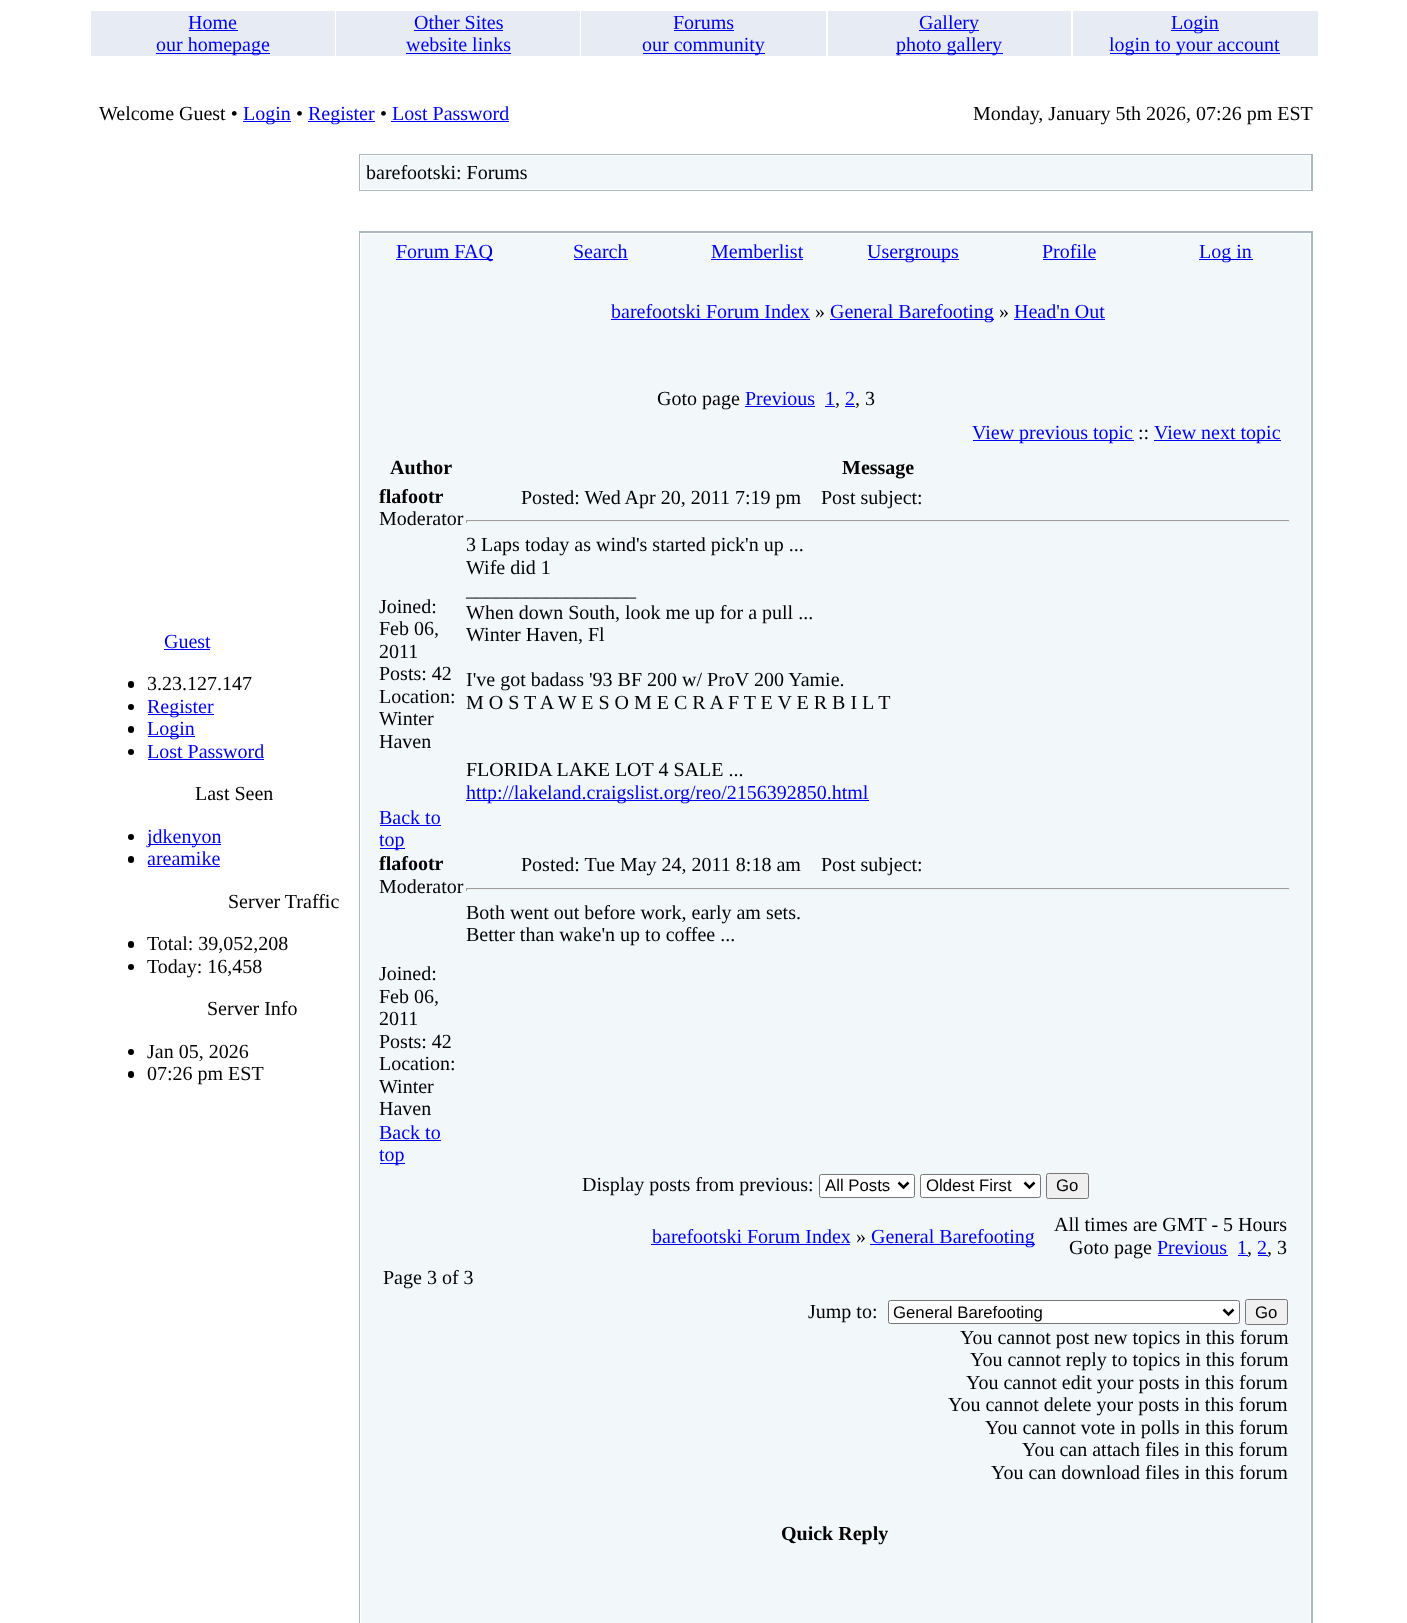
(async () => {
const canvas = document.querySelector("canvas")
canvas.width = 1407
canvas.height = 1623
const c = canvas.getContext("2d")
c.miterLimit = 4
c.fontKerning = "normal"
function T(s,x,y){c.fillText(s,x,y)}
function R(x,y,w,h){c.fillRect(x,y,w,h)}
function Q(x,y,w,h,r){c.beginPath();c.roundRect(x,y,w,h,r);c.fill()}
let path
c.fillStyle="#fff"
R(0,0,1407,1623)
c.fillStyle="#e6ebf4"
R(91,11,244,45)
c.font="20px Liberation Serif"
c.fillStyle="#00e"
T("Home",188,29)
R(189,30,49,1)
R(156,53,114,1)
T("our homepage",156,51)
c.fillStyle="#e6ebf4"
R(336,11,244,45)
c.fillStyle="#00e"
T("Other Sites",414,29)
R(414,30,89,1)
T("website links",406,51)
R(406,53,105,1)
c.fillStyle="#e6ebf4"
R(581,11,245,45)
c.fillStyle="#00e"
T("Forums",673,29)
R(674,30,60,1)
R(643,53,122,1)
T("our community",642,51)
c.fillStyle="#e6ebf4"
R(828,11,243,45)
c.fillStyle="#00e"
R(919,30,60,1)
T("Gallery",919,29)
R(896,53,107,1)
T("photo gallery",896,51)
c.fillStyle="#e6ebf4"
R(1073,11,245,45)
c.fillStyle="#00e"
R(1171,30,48,1)
T("Login",1171,29)
R(1110,53,170,1)
T("login to your account",1109,51)
c.fillStyle="#000"
T("Welcome Guest •",99,120)
c.fillStyle="#00e"
R(243,121,48,1)
T("Login",243,120)
c.fillStyle="#000"
T("•",296,120)
c.fillStyle="#00e"
R(308,121,67,1)
T("Register",308,120)
c.fillStyle="#000"
T("•",380,120)
c.fillStyle="#00e"
T("Lost Password",392,120)
R(391,121,118,1)
c.fillStyle="#000"
T("Monday, January 5th 2026, 07:26 pm EST",973,120)
c.fillStyle="#00e"
T("Guest",164,648)
R(164,649,46,1)
c.fillStyle="#000"
Q(128,681,6,7,3)
T("3.23.127.147",147,690)
c.beginPath()
c.arc(131,707,3,0,7)
c.fill()
c.fillStyle="#00e"
R(148,714,66,1)
T("Register",147,713)
c.fillStyle="#000"
Q(128,726,6,7,3)
c.fillStyle="#00e"
R(148,736,47,1)
T("Login",147,735)
c.fillStyle="#000"
c.beginPath()
c.arc(131,752,3,0,7)
c.fill()
c.fillStyle="#00e"
T("Lost Password",147,758)
R(148,759,116,1)
c.fillStyle="#000"
T("Last Seen",195,800)
c.beginPath()
c.arc(131,837,3,0,7)
c.fill()
c.fillStyle="#00e"
R(148,844,73,1)
T("jdkenyon",147,843)
c.fillStyle="#000"
Q(128,856,6,7,3)
c.fillStyle="#00e"
T("areamike",147,865)
R(148,866,72,1)
c.fillStyle="#000"
T("Server Traffic",228,908)
Q(128,941,6,7,3)
T("Total: 39,052,208",147,950)
c.beginPath()
c.arc(131,967,3,0,7)
c.fill()
T("Today: 16,458",147,973)
T("Server Info",207,1015)
c.beginPath()
c.arc(131,1052,3,0,7)
c.fill()
T("Jan 05, 2026",147,1058)
Q(128,1071,6,7,3)
T("07:26 pm EST",147,1080)
c.fillStyle="#a9b8c2"
R(359,154,954,37)
c.fillStyle="#fff"
R(360,155,951,35)
c.fillStyle="#f2f7f9"
R(361,156,949,33)
c.fillStyle="#000"
T("barefootski: Forums",366,179)
c.fillStyle="#a9b8c2"
R(359,231,954,1392)
c.fillStyle="#fff"
R(360,233,951,1390)
c.fillStyle="#f2f7f9"
R(361,234,949,1389)
c.fillStyle="#00e"
R(396,259,97,1)
T("Forum FAQ",396,258)
T("Search",573,258)
R(574,259,54,1)
T("Memberlist",711,258)
R(711,259,92,1)
R(868,259,91,1)
T("Usergroups",867,258)
T("Profile",1042,258)
R(1043,259,53,1)
R(1199,259,54,1)
T("Log in",1199,258)
T("barefootski Forum Index",611,318)
R(611,319,199,1)
c.fillStyle="#000"
T("»",815,318)
c.fillStyle="#00e"
R(830,319,164,1)
T("General Barefooting",830,318)
c.fillStyle="#000"
T("»",999,318)
c.fillStyle="#00e"
T("Head'n Out",1014,318)
R(1014,319,91,1)
c.fillStyle="#000"
T("Goto page",657,405)
c.fillStyle="#00e"
T("Previous",745,405)
R(745,406,70,1)
T("1",825,405)
c.fillStyle="#000"
T(",",835,405)
c.fillStyle="#00e"
R(825,406,10,1)
R(845,406,10,1)
T("2",845,405)
c.fillStyle="#000"
T(", 3",855,405)
c.fillStyle="#00e"
R(973,440,161,1)
T("View previous topic",972,439)
c.fillStyle="#000"
T("::",1138,439)
c.fillStyle="#00e"
R(1154,440,127,1)
T("View next topic",1154,439)
c.font="bold 20px Liberation Serif"
c.fillStyle="#000"
T("Author",390,474)
T("Message",842,474)
T("flafootr",379,503)
c.font="20px Liberation Serif"
T("Moderator",379,525)
T("Joined:",379,613)
T("Feb 06,",379,635)
T("2011",379,658)
T("Posts: 42",379,680)
T("Location:",379,703)
T("Winter",379,725)
T("Haven",379,748)
T("Posted: Wed Apr 20, 2011 7:19 pm",521,504)
T("Post subject:",821,504)
c.fillStyle="#9f9f9f"
R(466,520,824,1)
c.fillStyle="#eee"
R(1289,520,1,3)
R(466,521,824,1)
c.fillStyle="#9f9f9f"
R(466,520,1,3)
c.fillStyle="#000"
T("3 Laps today as wind's started pick'n up ...",466,551)
T("Wife did 1",466,574)
T("_________________",466,596)
T("When down South, look me up for a pull ...",466,619)
T("Winter Haven, Fl",466,641)
T("I've got badass '93 BF 200 w/ ProV 200 Yamie.",466,686)
T("M O S T A W E S O M E C R A F T E V E R B I L T",466,709)
T("FLORIDA LAKE LOT 4 SALE ...",466,776)
c.fillStyle="#00e"
R(466,800,403,1)
T("http://lakeland.craigslist.org/reo/2156392850.html",466,799)
T("Back to",379,824)
R(380,825,61,1)
R(380,848,25,1)
T("top",379,846)
c.font="bold 20px Liberation Serif"
c.fillStyle="#000"
T("flafootr",379,870)
c.font="20px Liberation Serif"
T("Moderator",379,893)
T("Joined:",379,980)
T("Feb 06,",379,1003)
T("2011",379,1025)
T("Posts: 42",379,1048)
T("Location:",379,1070)
T("Winter",379,1093)
T("Haven",379,1115)
T("Posted: Tue May 24, 2011 8:18 am",521,871)
T("Post subject:",821,871)
c.fillStyle="#9f9f9f"
R(466,888,824,1)
c.fillStyle="#eee"
R(1289,888,1,3)
R(466,889,824,1)
c.fillStyle="#9f9f9f"
R(466,888,1,3)
c.fillStyle="#000"
T("Both went out before work, early am sets.",466,919)
T("Better than wake'n up to coffee ...",466,941)
c.fillStyle="#00e"
T("Back to",379,1139)
R(380,1140,61,1)
R(380,1163,25,1)
T("top",379,1161)
c.fillStyle="#000"
T("Display posts from previous:",582,1191)
c.fillStyle="#fff"
c.beginPath()
c.roundRect(819.5,1174.5,95,23,2)
c.fill()
c.strokeStyle="#767676"
c.stroke()
path = new Path2D("M898.5 1182.5l5 5l5-5")
c.strokeStyle="#000"
c.lineWidth=2.5
c.stroke(path)
c.font="16.75px Liberation Sans"
c.fillStyle="#000"
T("All Posts",825,1191)
c.fillStyle="#fff"
c.beginPath()
c.roundRect(920.5,1174.5,120,23,2)
c.fill()
c.strokeStyle="#767676"
c.lineWidth=1
c.stroke()
path = new Path2D("M1024.5 1182.5l5 5l5-5")
c.strokeStyle="#000"
c.lineWidth=2.5
c.stroke(path)
c.fillStyle="#000"
T("Oldest First",926,1191)
c.fillStyle="#efefef"
c.beginPath()
c.roundRect(1046.5,1173.5,42,25,2)
c.fill()
c.strokeStyle="#767676"
c.lineWidth=1
c.stroke()
c.fillStyle="#000"
T("Go",1056,1191)
c.font="20px Liberation Serif"
c.fillStyle="#00e"
T("barefootski Forum Index",652,1243)
R(651,1244,199,1)
c.fillStyle="#000"
T("»",856,1243)
c.fillStyle="#00e"
R(870,1244,165,1)
T("General Barefooting",871,1243)
c.fillStyle="#000"
T("All times are GMT - 5 Hours",1054,1231)
T("Goto page",1069,1254)
c.fillStyle="#00e"
T("Previous",1157,1254)
R(1158,1255,70,1)
T("1",1237,1254)
R(1238,1255,10,1)
c.fillStyle="#000"
T(",",1247,1254)
c.fillStyle="#00e"
R(1258,1255,10,1)
T("2",1257,1254)
c.fillStyle="#000"
T(", 3",1267,1254)
T("Page 3 of 3",383,1284)
T("Jump to:",808,1318)
c.fillStyle="#fff"
c.beginPath()
c.roundRect(888.5,1300.5,351,23,2)
c.fill()
c.stroke()
path = new Path2D("M1223.5 1309.5l5 5l5-5")
c.strokeStyle="#000"
c.lineWidth=2.5
c.stroke(path)
c.font="16.75px Liberation Sans"
c.fillStyle="#000"
T("General Barefooting",893,1318)
c.fillStyle="#efefef"
c.beginPath()
c.roundRect(1245.5,1299.5,42,25,2)
c.fill()
c.strokeStyle="#767676"
c.lineWidth=1
c.stroke()
c.fillStyle="#000"
T("Go",1255,1318)
c.font="20px Liberation Serif"
T("You cannot post new topics in this forum",960,1344)
T("You cannot reply to topics in this forum",970,1366)
T("You cannot edit your posts in this forum",966,1389)
T("You cannot delete your posts in this forum",948,1411)
T("You cannot vote in polls in this forum",985,1434)
T("You can attach files in this forum",1022,1456)
T("You can download files in this forum",991,1479)
c.font="bold 20px Liberation Serif"
T("Quick Reply",781,1540)
})()
